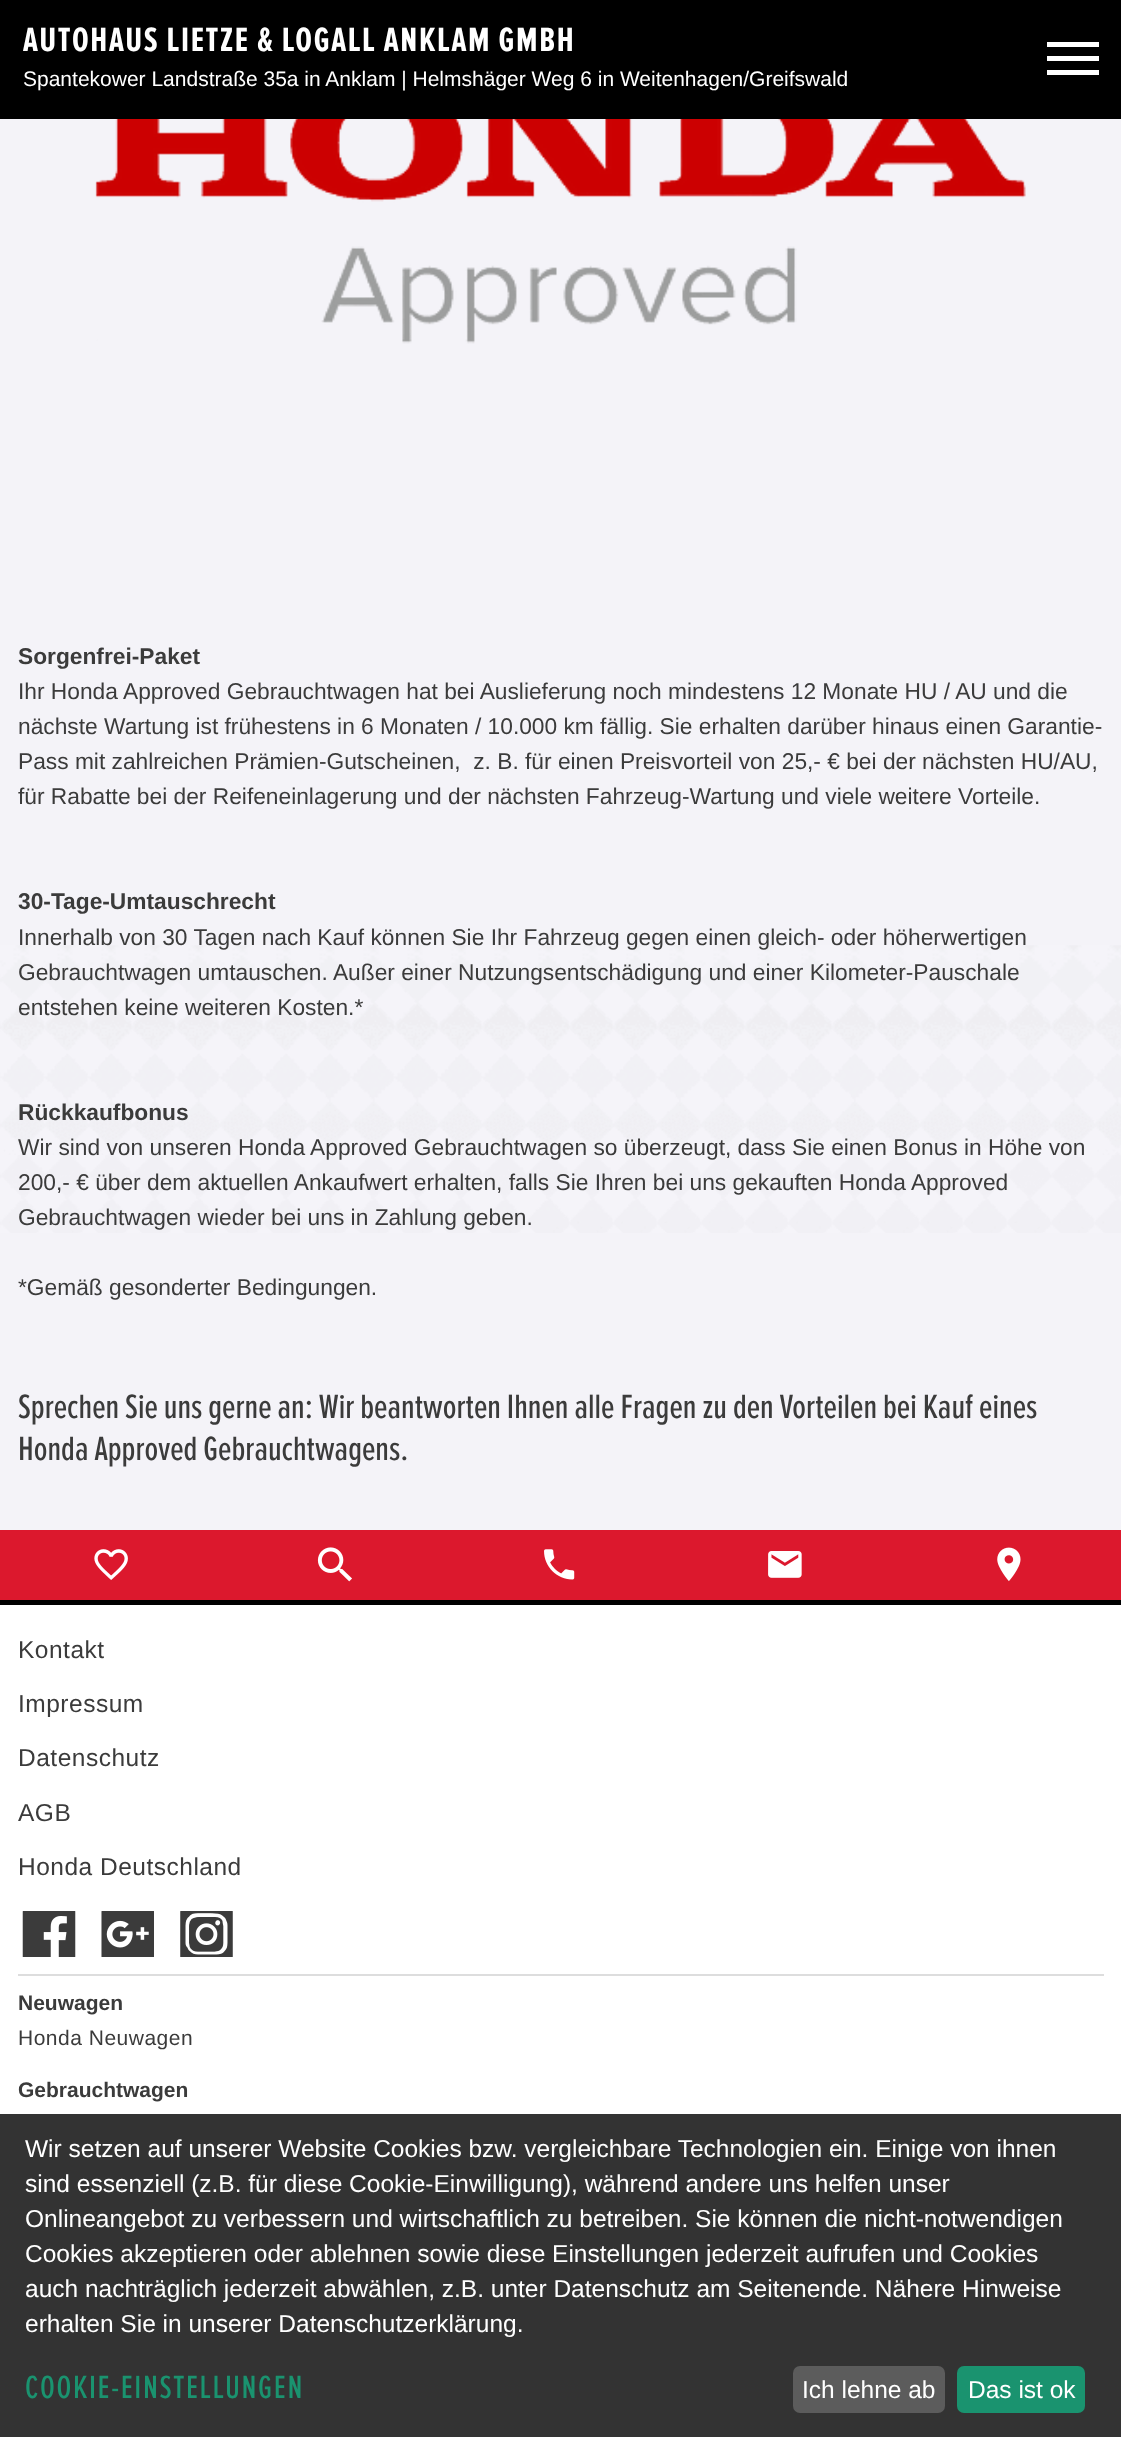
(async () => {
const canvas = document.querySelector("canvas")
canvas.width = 1121
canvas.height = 2437
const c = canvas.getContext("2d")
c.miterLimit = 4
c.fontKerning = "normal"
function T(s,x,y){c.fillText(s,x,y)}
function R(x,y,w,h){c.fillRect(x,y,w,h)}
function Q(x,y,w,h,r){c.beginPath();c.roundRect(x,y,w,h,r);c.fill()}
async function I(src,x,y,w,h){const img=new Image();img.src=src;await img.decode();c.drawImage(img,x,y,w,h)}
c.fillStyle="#fff"
R(0,0,1121,2437)
c.fillStyle="#000"
R(0,0,1121,119)
c.letterSpacing="1.65px"
c.font="bold 35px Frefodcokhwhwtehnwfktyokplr"
c.fillStyle="#fff"
T("AUTOHAUS LIETZE & LOGALL ANKLAM GMBH",23,51)
c.letterSpacing="0px"
c.font="21px Liberation Sans"
T("Spantekower Landstraße 35a in Anklam | Helmshäger Weg 6 in Weitenhagen/Greifswald",23,86)
R(1047,56,52,5)
R(1047,42,52,5)
R(1047,70,52,5)
c.fillStyle="#f4f3f8"
R(0,119,1121,1411)
await I("1.png",0,945,1121,288)
await I("2.png",95,119,931,225)
c.font="bold 22.75px Liberation Sans"
c.fillStyle="#3b3b3b"
T("Sorgenfrei-Paket",18,664)
c.font="22.75px Liberation Sans"
T("Ihr Honda Approved Gebrauchtwagen hat bei Auslieferung noch mindestens 12 Monate HU / AU und die",18,699)
T("nächste Wartung ist frühestens in 6 Monaten / 10.000 km fällig. Sie erhalten darüber hinaus einen Garantie-",18,734)
T("Pass mit zahlreichen Prämien-Gutscheinen,  z. B. für einen Preisvorteil von 25,- € bei der nächsten HU/AU,",18,769)
T("für Rabatte bei der Reifeneinlagerung und der nächsten Fahrzeug-Wartung und viele weitere Vorteile.",18,804)
c.font="bold 22.75px Liberation Sans"
T("30-Tage-Umtauschrecht",18,909)
c.font="22.75px Liberation Sans"
T("Innerhalb von 30 Tagen nach Kauf können Sie Ihr Fahrzeug gegen einen gleich- oder höherwertigen",18,945)
T("Gebrauchtwagen umtauschen. Außer einer Nutzungsentschädigung und einer Kilometer-Pauschale",18,980)
T("entstehen keine weiteren Kosten.*",18,1015)
c.font="bold 22.75px Liberation Sans"
T("Rückkaufbonus",18,1120)
c.font="22.75px Liberation Sans"
T("Wir sind von unseren Honda Approved Gebrauchtwagen so überzeugt, dass Sie einen Bonus in Höhe von",18,1155)
T("200,- € über dem aktuellen Ankaufwert erhalten, falls Sie Ihren bei uns gekauften Honda Approved",18,1190)
T("Gebrauchtwagen wieder bei uns in Zahlung geben.",18,1225)
T("*Gemäß gesonderter Bedingungen.",18,1295)
c.font="500 35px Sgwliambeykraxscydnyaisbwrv"
T("Sprechen Sie uns gerne an: Wir beantworten Ihnen alle Fragen zu den Vorteilen bei Kauf eines",18,1418)
T("Honda Approved Gebrauchtwagens.",18,1460)
c.fillStyle="#dc182d"
R(0,1530,1121,70)
await I("3.png",94,1549,34,31)
await I("4.png",317,1547,35,35)
await I("5.png",544,1549,31,31)
await I("6.png",768,1551,34,27)
await I("7.png",997,1547,24,35)
c.fillStyle="#000"
R(0,1600,1121,5)
c.letterSpacing="0.5px"
c.font="24.5px Liberation Sans"
c.fillStyle="#3b3b3b"
T("Kontakt",18,1658)
T("Impressum",18,1712)
T("Datenschutz",18,1766)
T("AGB",18,1821)
T("Honda Deutschland",18,1875)
await I("8.png",22,1911,54,46)
await I("9.png",101,1911,53,46)
await I("10.png",180,1911,53,46)
c.fillStyle="#ddd"
R(18,1974,1086,2)
c.letterSpacing="0px"
c.font="bold 21px Liberation Sans"
c.fillStyle="#3b3b3b"
T("Neuwagen",18,2010)
c.letterSpacing="0.5px"
c.font="21px Liberation Sans"
T("Honda Neuwagen",18,2045)
c.letterSpacing="0px"
c.font="bold 21px Liberation Sans"
T("Gebrauchtwagen",18,2097)
c.fillStyle="#333"
R(0,2114,1121,323)
c.font="24.5px Liberation Sans"
c.fillStyle="#fff"
T("Wir setzen auf unserer Website Cookies bzw. vergleichbare Technologien ein. Einige von ihnen",25,2157)
T("sind essenziell (z.B. für diese Cookie-Einwilligung), während andere uns helfen unser",25,2192)
T("Onlineangebot zu verbessern und wirtschaftlich zu betreiben. Sie können die nicht-notwendigen",25,2227)
T("Cookies akzeptieren oder ablehnen sowie diese Einstellungen jederzeit aufrufen und Cookies",25,2262)
T("auch nachträglich jederzeit abwählen, z.B. unter Datenschutz am Seitenende. Nähere Hinweise",25,2297)
T("erhalten Sie in unserer Datenschutzerklärung.",25,2332)
c.letterSpacing="1.65px"
c.font="500 33.25px Sgwliambeykraxscydnyaisbwrv"
c.fillStyle="#1a936f"
T("COOKIE-EINSTELLUNGEN",25,2398)
c.fillStyle="#5c5c5c"
Q(793,2366,152,47,7)
c.letterSpacing="0px"
c.font="24.5px Liberation Sans"
c.fillStyle="#fff"
T("Ich lehne ab",802,2398)
c.fillStyle="#1a936f"
Q(957,2366,128,47,7)
c.fillStyle="#fff"
T("Das ist ok",968,2398)
})()
